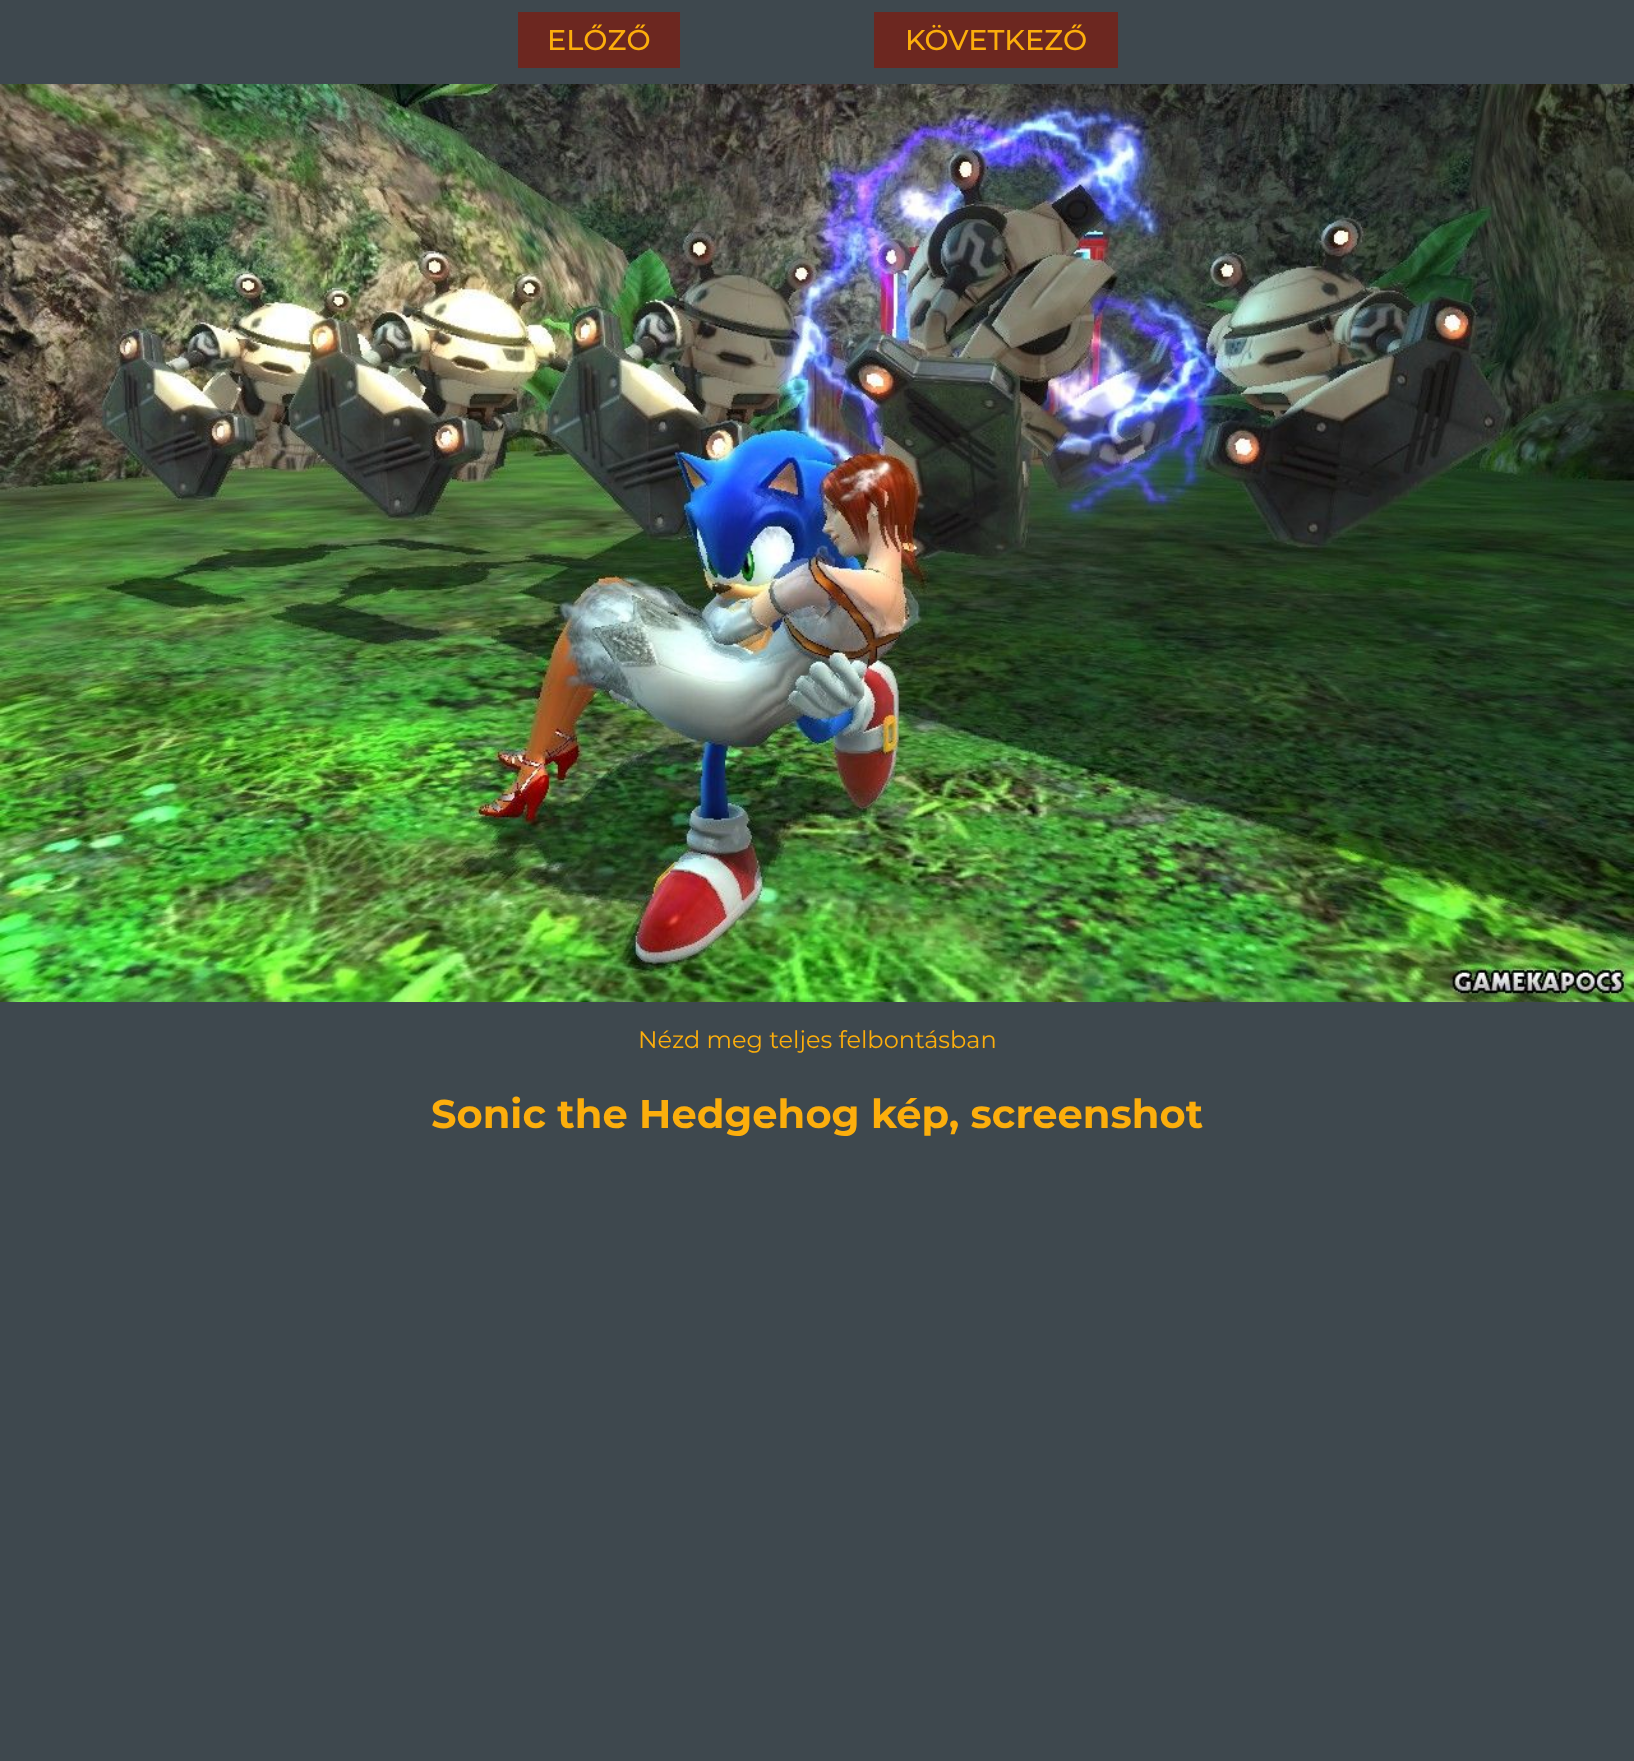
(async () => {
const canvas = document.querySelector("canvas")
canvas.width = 1634
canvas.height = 1761
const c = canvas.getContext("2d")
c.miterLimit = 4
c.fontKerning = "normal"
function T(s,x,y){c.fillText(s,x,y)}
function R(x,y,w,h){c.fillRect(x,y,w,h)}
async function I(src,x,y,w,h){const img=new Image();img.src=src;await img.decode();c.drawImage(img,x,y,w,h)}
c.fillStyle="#3e484e"
R(0,0,1634,1761)
c.fillStyle="#6c2720"
R(518,12,162,56)
c.font="500 28.75px Montserrat"
c.fillStyle="#fcae0c"
T("ELŐZŐ",547,50)
c.fillStyle="#6c2720"
R(874,12,244,56)
c.fillStyle="#fcae0c"
T("KÖVETKEZŐ",905,50)
await I("1.png",0,84,1634,918)
c.font="24px Montserrat"
T("Nézd meg teljes felbontásban",638,1048)
c.font="bold 40px Montserrat"
T("Sonic the Hedgehog kép, screenshot",431,1128)
})()
